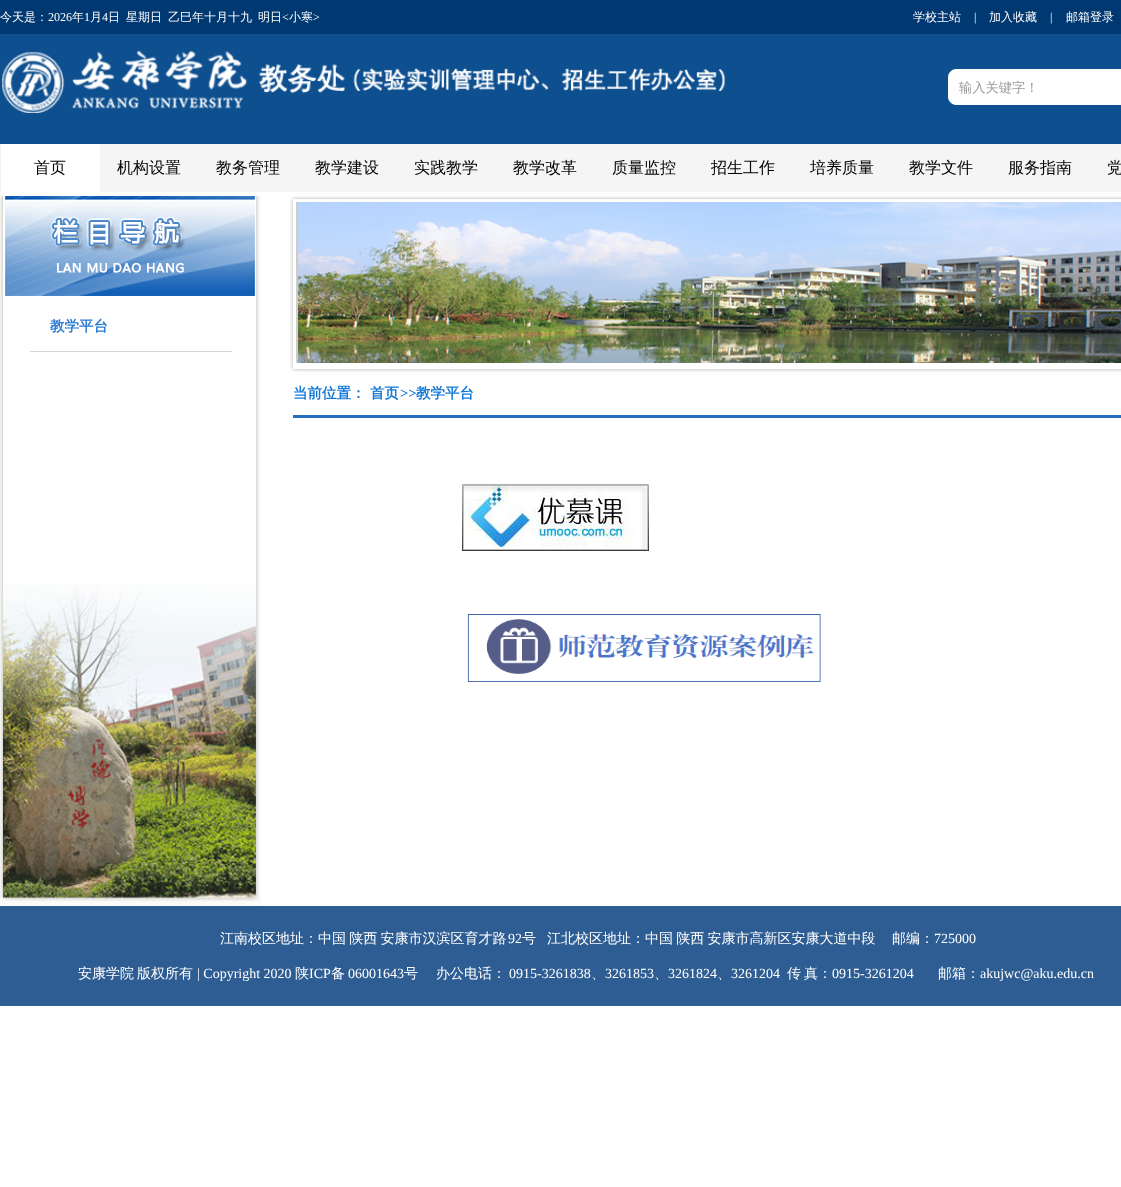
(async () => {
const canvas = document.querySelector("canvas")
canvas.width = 1121
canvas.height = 1187
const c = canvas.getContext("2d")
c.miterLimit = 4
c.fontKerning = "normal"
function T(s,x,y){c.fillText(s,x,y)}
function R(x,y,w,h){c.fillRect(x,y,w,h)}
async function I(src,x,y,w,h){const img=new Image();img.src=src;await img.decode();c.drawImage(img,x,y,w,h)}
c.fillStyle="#fff"
R(0,0,1121,1187)
c.fillStyle="#003871"
R(0,0,1121,34)
c.font="500 12px WenQuanYi Zen Hei"
c.fillStyle="#fff"
T("今天是：",0,21)
c.font="12px Liberation Serif"
T("2026",48,21)
c.font="500 12px WenQuanYi Zen Hei"
T("年",72,21)
c.font="12px Liberation Serif"
T("1",84,21)
c.font="500 12px WenQuanYi Zen Hei"
T("月",90,21)
c.font="12px Liberation Serif"
T("4",102,21)
c.font="500 12px WenQuanYi Zen Hei"
T("日",108,21)
T("星期日",126,21)
T("乙巳年十月十九",168,21)
T("明日",258,21)
c.font="12px Liberation Serif"
T("<",282,21)
c.font="500 12px WenQuanYi Zen Hei"
T("小寒",289,21)
c.font="12px Liberation Serif"
T(">",313,21)
c.font="500 12px WenQuanYi Zen Hei"
T("学校主站",913,21)
c.font="12px Liberation Serif"
T("|",974,21)
c.font="500 12px WenQuanYi Zen Hei"
T("加入收藏",989,21)
c.font="12px Liberation Serif"
T("|",1050,21)
c.font="500 12px WenQuanYi Zen Hei"
T("邮箱登录",1066,21)
c.fillStyle="#0e4f8f"
R(0,34,1121,110)
await I("1.png",2,51,723,62)
c.fillStyle="#fff"
c.beginPath()
c.roundRect(948.5,69.5,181,35,7.5)
c.fill()
c.strokeStyle="#fff"
c.stroke()
c.font="500 13.25px WenQuanYi Zen Hei"
c.fillStyle="#999"
T("输入关键字！",959,92)
c.fillStyle="#f5f5f5"
R(0,144,1121,48)
c.fillStyle="#fff"
R(1,144,99,48)
c.font="500 16px WenQuanYi Zen Hei"
c.fillStyle="#000"
T("首页",34,173)
T("机构设置",117,173)
T("教务管理",216,173)
T("教学建设",315,173)
T("实践教学",414,173)
T("教学改革",513,173)
T("质量监控",612,173)
T("招生工作",711,173)
T("培养质量",810,173)
T("教学文件",909,173)
T("服务指南",1008,173)
T("党",1107,173)
await I("2.png",0,196,261,335)
await I("3.png",5,196,250,100)
c.fillStyle="#d6d6d6"
R(30,351,202,1)
c.font="bold 14.5px WenQuanYi Zen Hei"
c.fillStyle="#2a7bd4"
T("教学平台",50,331)
await I("4.png",290,196,831,176)
c.fillStyle="#256dbf"
R(293,415,828,3)
c.fillStyle="#147ad9"
T("当前位置：",293,398)
T("首页",370,398)
c.font="bold 14.5px Liberation Serif"
T(">>",400,398)
c.font="bold 14.5px WenQuanYi Zen Hei"
T("教学平台",416,398)
await I("5.png",462,484,187,67)
await I("6.png",467,614,354,68)
await I("7.png",0,531,261,375)
await I("8.png",0,584,259,322)
c.fillStyle="#2e5d93"
R(0,906,1121,100)
c.wordSpacing="-1px"
c.font="500 14px WenQuanYi Zen Hei"
c.fillStyle="#fff"
T("江南校区地址：中国 陕西 安康市汉滨区育才路",220,943)
c.wordSpacing="0px"
c.font="14px Liberation Serif"
T("92",508,943)
c.font="500 14px WenQuanYi Zen Hei"
T("号",522,943)
c.wordSpacing="-1px"
T("江北校区地址：中国 陕西 安康市高新区安康大道中段",547,943)
c.wordSpacing="0px"
T("邮编：",892,943)
c.font="14px Liberation Serif"
T("725000",934,943)
c.font="500 14px WenQuanYi Zen Hei"
T("安康学院",78,978)
T("版权所有",137,978)
c.font="14px Liberation Serif"
T("| Copyright 2020",197,978)
c.font="500 14px WenQuanYi Zen Hei"
T("陕",295,978)
c.font="14px Liberation Serif"
T("ICP",309,978)
c.font="500 14px WenQuanYi Zen Hei"
T("备",331,978)
c.font="14px Liberation Serif"
T("06001643",348,978)
c.font="500 14px WenQuanYi Zen Hei"
T("号",404,978)
T("办公电话：",436,978)
c.font="14px Liberation Serif"
T("0915-3261838",509,978)
c.font="500 14px WenQuanYi Zen Hei"
T("、",591,978)
c.font="14px Liberation Serif"
T("3261853",605,978)
c.font="500 14px WenQuanYi Zen Hei"
T("、",654,978)
c.font="14px Liberation Serif"
T("3261824",668,978)
c.font="500 14px WenQuanYi Zen Hei"
T("、",717,978)
c.font="14px Liberation Serif"
T("3261204",731,978)
c.font="500 14px WenQuanYi Zen Hei"
T("传",787,978)
T("真：",804,978)
c.font="14px Liberation Serif"
T("0915-3261204",832,978)
c.font="500 14px WenQuanYi Zen Hei"
T("邮箱：",938,978)
c.font="14px Liberation Serif"
T("akujwc@aku.edu.cn",980,978)
})()
